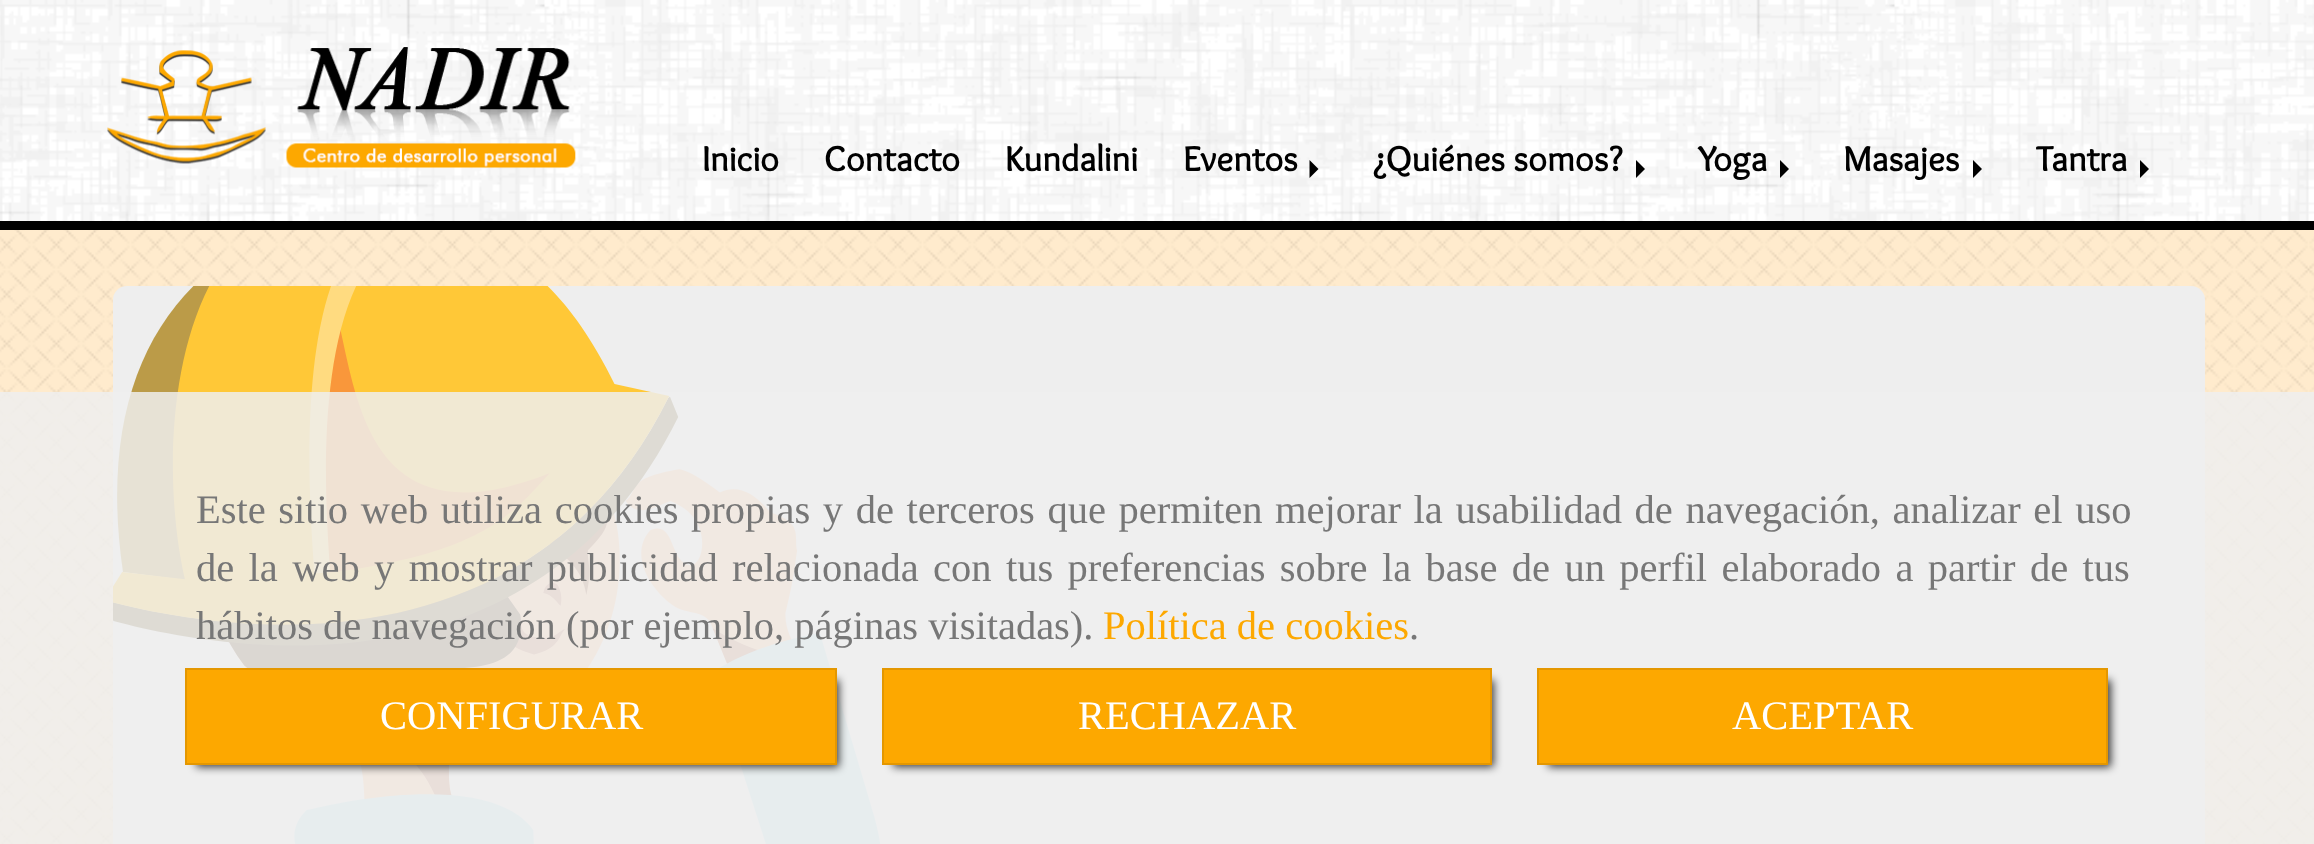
(async () => {
const canvas = document.querySelector("canvas")
canvas.width = 2314
canvas.height = 844
const c = canvas.getContext("2d")
c.miterLimit = 4
c.fontKerning = "normal"
function T(s,x,y){c.fillText(s,x,y)}
function R(x,y,w,h){c.fillRect(x,y,w,h)}
function Q(x,y,w,h,r){c.beginPath();c.roundRect(x,y,w,h,r);c.fill()}
async function I(src,x,y,w,h){const img=new Image();img.src=src;await img.decode();c.drawImage(img,x,y,w,h)}
let path
c.fillStyle="#fff"
R(0,0,2314,844)
await I("1.png",0,230,2314,614)
await I("2.png",0,0,2314,221)
c.fillStyle="#000"
R(0,221,2314,9)
await I("3.png",107,47,469,121)
c.font="bold 36px Overlock"
T("Inicio",702,171)
T("Contacto",824,171)
T("Kundalini",1005,171)
T("Eventos",1183,171)
path = new Path2D("M1309.5 178v-18l9 9z")
c.fill(path)
T("¿Quiénes somos?",1373,171)
path = new Path2D("M1636 178v-18l9 9z")
c.fill(path)
T("Yoga",1698,171)
path = new Path2D("M1780 178v-18l9 9z")
c.fill(path)
T("Masajes",1843,171)
path = new Path2D("M1973 178v-18l9 9z")
c.fill(path)
T("Tantra",2036,171)
path = new Path2D("M2140 178v-18l9 9z")
c.fill(path)
c.fillStyle="#eee"
Q(113,286,2092,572,14)
await I("4.png",113,286,768,558)
c.fillStyle="#eeeeeed9"
R(0,392,2314,452)
c.wordSpacing="2.5px"
c.font="40.5px Liberation Serif"
c.fillStyle="#777"
T("Este sitio web utiliza cookies propias y de terceros que permiten mejorar la usabilidad de navegación, analizar el uso",196,523)
c.wordSpacing="4.25px"
T("de la web y mostrar publicidad relacionada con tus preferencias sobre la base de un perfil elaborado a partir de tus",196,581)
c.wordSpacing="0px"
T("hábitos de navegación (por ejemplo, páginas visitadas).",196,639)
c.fillStyle="#fda800"
T("Política de cookies",1103,639)
c.fillStyle="#777"
T(".",1409,639)
c.fillStyle="#000000bf"
c.filter="blur(4.5px)"
c.beginPath()
c.rect(196,680,643,87)
c.fill()
c.filter="none"
c.fillStyle="#fda800"
c.beginPath()
c.rect(186,669,650,95)
c.fill()
c.strokeStyle="#e49700"
c.lineWidth=2
c.stroke()
c.fillStyle="#fff"
T("CONFIGURAR",380,729)
c.fillStyle="#000000bf"
c.filter="blur(4.5px)"
c.beginPath()
c.rect(893,680,601,87)
c.fill()
c.filter="none"
c.fillStyle="#fda800"
c.beginPath()
c.rect(883,669,608,95)
c.fill()
c.stroke()
c.fillStyle="#fff"
T("RECHAZAR",1078,729)
c.fillStyle="#000000bf"
c.filter="blur(4.5px)"
c.beginPath()
c.rect(1548,680,563,87)
c.fill()
c.filter="none"
c.fillStyle="#fda800"
c.beginPath()
c.rect(1538,669,569,95)
c.fill()
c.stroke()
c.fillStyle="#fff"
T("ACEPTAR",1732,729)
})()
